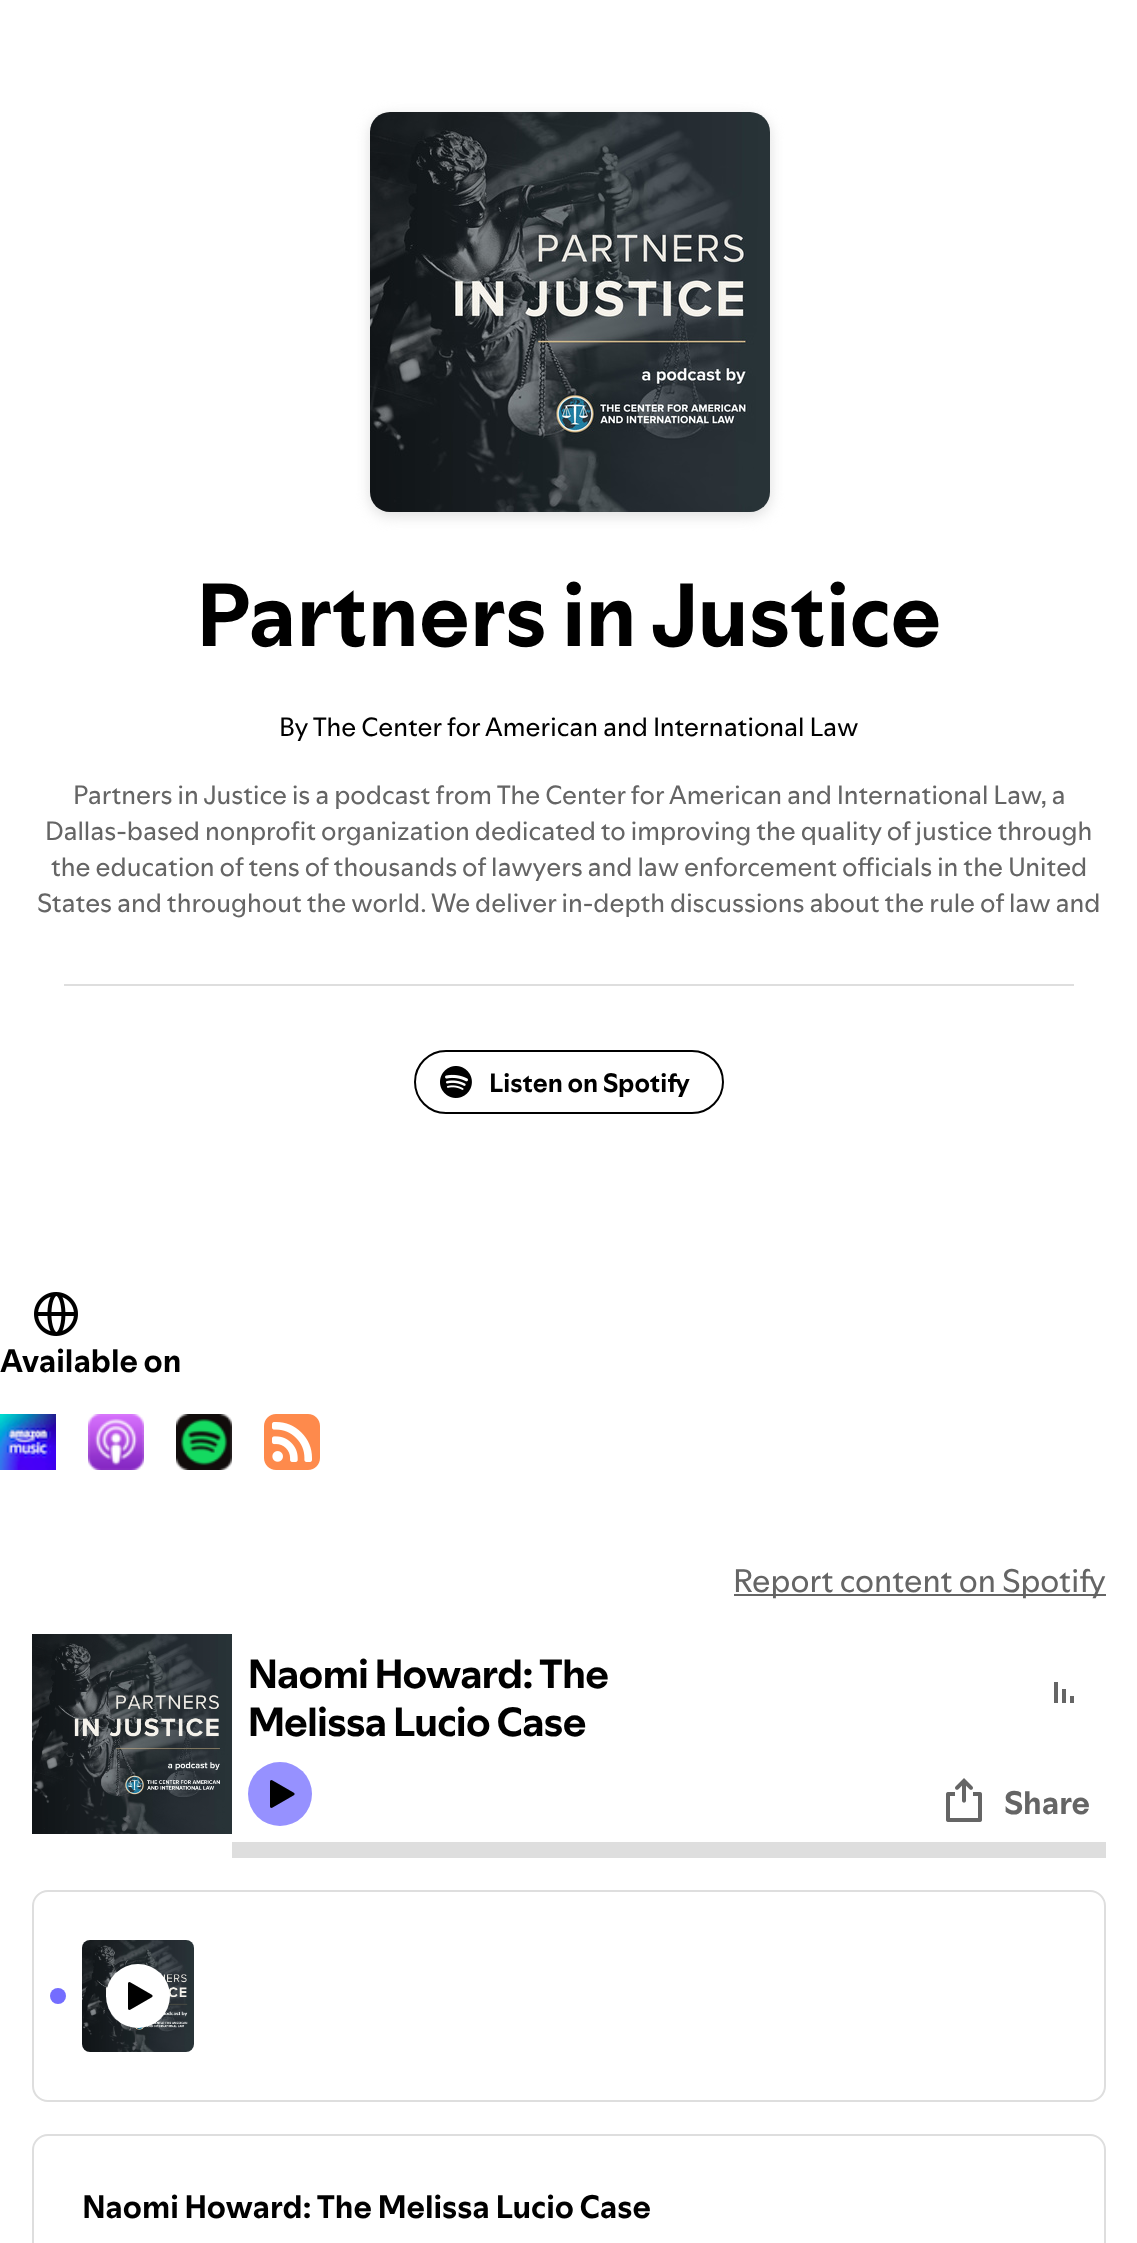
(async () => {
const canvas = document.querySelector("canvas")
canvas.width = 1137
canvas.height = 2243
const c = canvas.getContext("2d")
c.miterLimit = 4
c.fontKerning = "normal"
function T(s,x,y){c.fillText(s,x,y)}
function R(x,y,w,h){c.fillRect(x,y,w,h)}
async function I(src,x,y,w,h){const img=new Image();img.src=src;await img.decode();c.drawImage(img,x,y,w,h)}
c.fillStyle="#fff"
R(0,0,1137,2243)
c.fillStyle="#dedede"
c.filter="blur(7px)"
c.beginPath()
c.roundRect(370,116,400,400,20)
c.fill()
c.filter="none"
await I("1.png",370,112,400,400)
c.font="bold 88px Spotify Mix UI"
c.fillStyle="#000"
T("Partners in Justice",196,646)
c.font="26px Spotify Mix UI"
T("By The Center for American and International Law",279,736)
c.fillStyle="#656565"
T("Partners in Justice is a podcast from The Center for American and International Law, a",73,804)
T("Dallas-based nonprofit organization dedicated to improving the quality of justice through",45,840)
T("the education of tens of thousands of lawyers and law enforcement officials in the United",51,876)
T("States and throughout the world. We deliver in-depth discussions about the rule of law and",37,912)
c.fillStyle="#dedede"
R(64,984,1010,2)
c.beginPath()
c.roundRect(415,1051,308,62,31)
c.strokeStyle="#000"
c.lineWidth=2
c.stroke()
await I("2.png",440,1066,32,32)
c.font="bold 26px Spotify Mix UI"
c.fillStyle="#000"
T("Listen on Spotify",489,1092)
await I("3.png",34,1292,44,44)
c.font="bold 32px Spotify Mix UI"
T("Available on",0,1372)
await I("4.png",0,1414,56,56)
await I("5.png",88,1414,56,56)
await I("6.png",176,1414,56,56)
await I("7.png",264,1414,56,56)
c.fillStyle="#656565"
R(734,1594,372,2)
c.font="32px Spotify Mix UI"
T("Report content on Spotify",733,1592)
await I("8.png",32,1634,200,200)
c.font="bold 40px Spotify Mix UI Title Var"
c.fillStyle="#000"
T("Naomi Howard: The",248,1688)
T("Melissa Lucio Case",248,1736)
c.fillStyle="#656565"
R(1054,1682,4,21)
R(1062,1689,4,14)
R(1070,1696,4,7)
c.fillStyle="#9691ff"
c.beginPath()
c.arc(280,1794,32,0,7)
c.fill()
await I("9.png",270,1780,25,28)
await I("10.png",946,1778,36,44)
c.font="bold 32px Spotify Mix UI"
c.fillStyle="#656565"
T("Share",1004,1814)
c.fillStyle="#dedede"
R(232,1842,874,16)
c.beginPath()
c.roundRect(33,1891,1072,210,15)
c.strokeStyle="#dedede"
c.stroke()
c.fillStyle="#746dff"
c.beginPath()
c.arc(58,1996,8,0,7)
c.fill()
await I("11.png",82,1940,112,112)
c.fillStyle="#fff"
c.beginPath()
c.arc(138,1996,32,0,7)
c.fill()
await I("12.png",128,1982,25,28)
c.beginPath()
c.roundRect(33,2135,1072,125,15)
c.stroke()
c.fillStyle="#000"
T("Naomi Howard: The Melissa Lucio Case",82,2218)
})()
